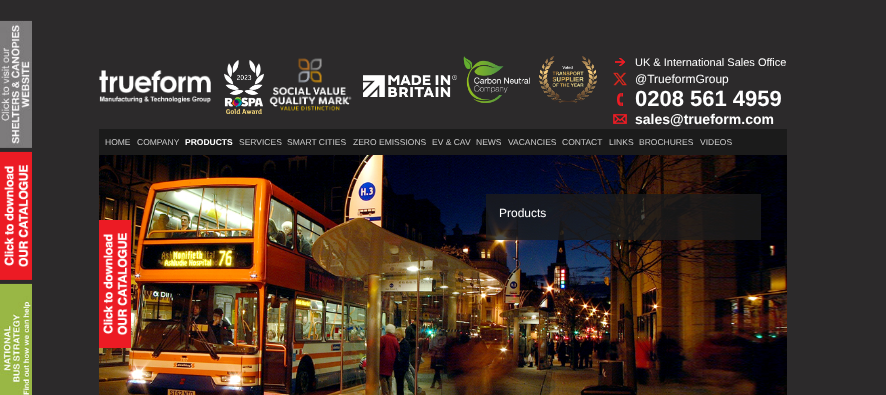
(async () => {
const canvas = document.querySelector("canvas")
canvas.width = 886
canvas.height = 395
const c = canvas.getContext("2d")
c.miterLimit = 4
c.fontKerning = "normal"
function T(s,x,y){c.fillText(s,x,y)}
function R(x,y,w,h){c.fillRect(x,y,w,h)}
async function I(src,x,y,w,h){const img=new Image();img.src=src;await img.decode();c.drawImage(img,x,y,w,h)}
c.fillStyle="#2c2a2b"
R(0,0,886,395)
await I("1.png",0,20,32,128)
await I("2.png",0,151,32,129)
await I("3.png",0,283,32,112)
await I("4.png",99,70,112,33)
await I("5.png",224,60,40,54)
await I("6.png",269,58,83,53)
await I("7.png",363,75,94,22)
await I("8.png",463,56,134,47)
await I("9.png",615,58,10,8)
c.font="11px Liberation Sans"
c.fillStyle="#fff"
T("UK & International Sales Office",635,66)
await I("10.png",613,72,14,14)
c.font="12px Liberation Sans"
T("@TrueformGroup",635,83)
await I("11.png",617,93,6,13)
c.font="bold 22px Liberation Sans"
T("0208 561 4959",635,106)
await I("12.png",613,114,14,10)
c.font="bold 14px Liberation Sans"
T("sales@trueform.com",635,124)
c.fillStyle="#1b1b1b"
R(99,129,688,26)
c.font="8.5px Liberation Sans"
c.fillStyle="#ccc"
T("HOME",105,145)
T("COMPANY",137,145)
c.font="bold 8.5px Liberation Sans"
c.fillStyle="#fff"
T("PRODUCTS",185,145)
c.font="8.5px Liberation Sans"
c.fillStyle="#ccc"
T("SERVICES",239,145)
T("SMART CITIES",287,145)
T("ZERO EMISSIONS",353,145)
T("EV & CAV",432,145)
T("NEWS",476,145)
T("VACANCIES",508,145)
T("CONTACT",562,145)
T("LINKS",609,145)
T("BROCHURES",639,145)
T("VIDEOS",700,145)
await I("13.png",99,155,688,240)
c.fillStyle="#1b1b1bcc"
R(486,194,275,46)
c.font="12px Liberation Sans"
c.fillStyle="#fff"
T("Products",499,217)
await I("14.png",99,220,32,128)
})()
